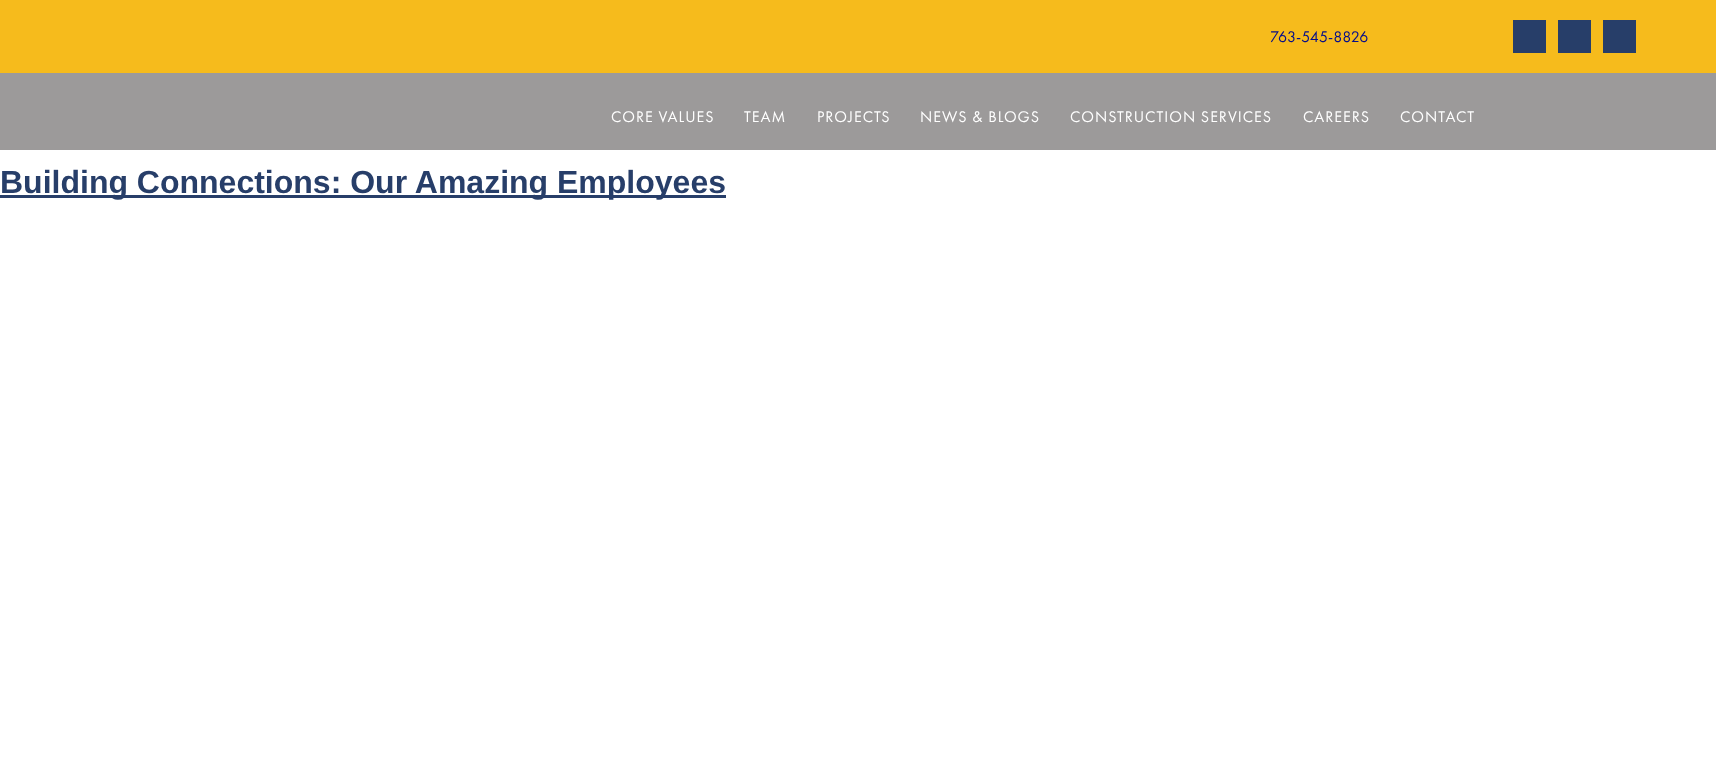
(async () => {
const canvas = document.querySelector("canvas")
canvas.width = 1716
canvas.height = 770
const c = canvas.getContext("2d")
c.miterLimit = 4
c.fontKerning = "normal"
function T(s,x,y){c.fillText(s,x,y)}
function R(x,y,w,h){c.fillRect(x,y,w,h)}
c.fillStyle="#fff"
R(0,0,1716,770)
c.fillStyle="#f6bb1c"
R(0,0,1716,73)
c.font="16px Futura PT"
c.fillStyle="#040c8b"
T("763-545-8826",1270,42)
c.fillStyle="#273e69"
R(1513,20,33,33)
R(1558,20,33,33)
R(1603,20,33,33)
c.fillStyle="#9c9a9a"
R(0,73,1716,77)
c.letterSpacing="1px"
c.fillStyle="#fff"
T("CORE VALUES",611,122)
T("TEAM",744,122)
T("PROJECTS",817,122)
T("NEWS & BLOGS",920,122)
T("CONSTRUCTION SERVICES",1070,122)
T("CAREERS",1303,122)
T("CONTACT",1400,122)
c.fillStyle="#273e69"
R(0,195,726,3)
c.letterSpacing="0px"
c.font="bold 32px Liberation Sans"
T("Building Connections: Our Amazing Employees",0,193)
})()
